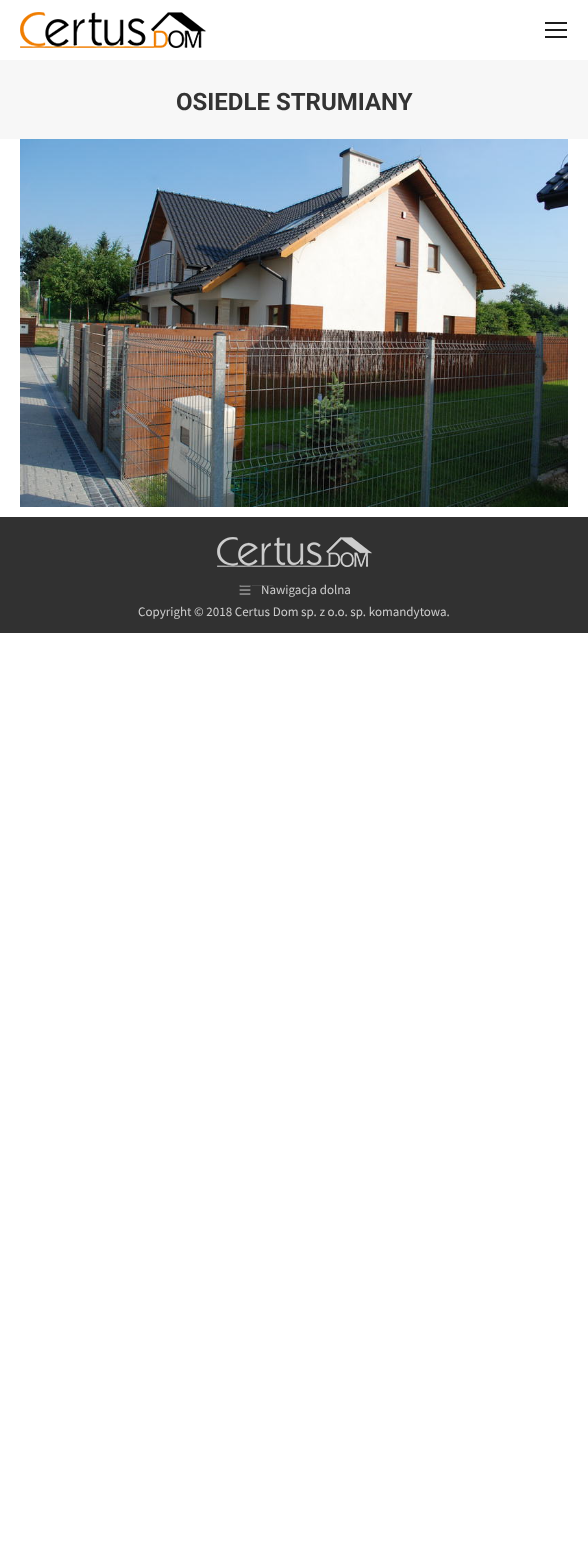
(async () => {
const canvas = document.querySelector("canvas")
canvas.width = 588
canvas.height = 1562
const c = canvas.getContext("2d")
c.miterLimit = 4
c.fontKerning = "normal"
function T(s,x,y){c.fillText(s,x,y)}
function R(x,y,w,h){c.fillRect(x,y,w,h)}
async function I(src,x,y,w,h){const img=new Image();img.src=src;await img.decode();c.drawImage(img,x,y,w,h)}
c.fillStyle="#fff"
R(0,0,588,1562)
await I("1.png",20,12,186,36)
c.fillStyle="#1d1d1d"
R(545,22,22,2)
R(545,29,22,2)
R(545,36,22,2)
c.fillStyle="#f7f7f7"
R(0,60,588,79)
c.font="bold 24px Roboto"
c.fillStyle="#333"
T("OSIEDLE STRUMIANY",176,110)
await I("2.png",20,139,548,368)
c.fillStyle="#313131"
R(0,517,588,116)
await I("3.png",217,537,155,30)
await I("4.png",239,585,12,10)
c.font="13px Source Sans Pro"
c.fillStyle="#ccc"
T("Nawigacja dolna",261,594)
c.font="14px Source Sans Pro"
c.fillStyle="#4c4c4c"
T("———",240,589)
c.font="13px Source Sans Pro"
c.fillStyle="#ccc"
T("Copyright © 2018 Certus Dom sp. z o.o. sp. komandytowa.",138,616)
})()
